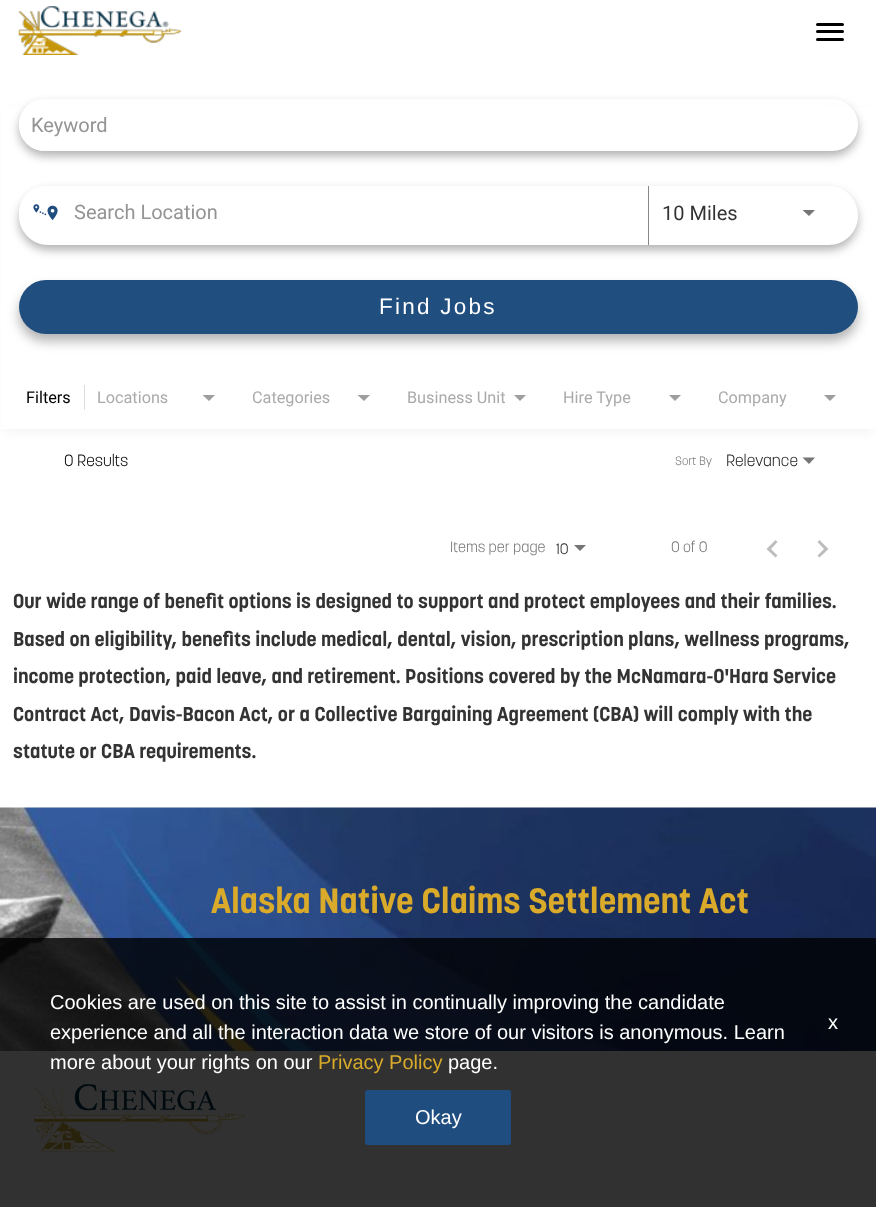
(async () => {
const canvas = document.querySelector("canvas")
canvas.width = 876
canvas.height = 1207
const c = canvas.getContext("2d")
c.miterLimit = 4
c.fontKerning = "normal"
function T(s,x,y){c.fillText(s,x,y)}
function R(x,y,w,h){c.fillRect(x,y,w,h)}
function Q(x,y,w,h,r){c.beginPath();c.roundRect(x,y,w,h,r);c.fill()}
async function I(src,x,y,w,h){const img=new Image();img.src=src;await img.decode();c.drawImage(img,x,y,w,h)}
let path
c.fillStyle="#fff"
R(0,0,876,1207)
await I("1.png",18,6,164,49)
c.fillStyle="#000"
Q(816,23,28,3,1.5)
Q(816,30,28,3,1.5)
Q(816,38,28,3,1.5)
c.fillStyle="#0000000a"
c.filter="blur(4px)"
c.beginPath()
c.rect(4,110,869,323)
c.fill()
c.filter="none"
c.fillStyle="#fff"
R(1,107,875,322)
c.save()
path = new Path2D("M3 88h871v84h-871zm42 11h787c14.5 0 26 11.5 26 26c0 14.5-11.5 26-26 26h-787c-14.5 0-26-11.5-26-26c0-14.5 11.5-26 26-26z")
c.clip(path,"evenodd")
c.fillStyle="#0000004d"
c.filter="blur(5px)"
c.beginPath()
c.roundRect(19,104,839,52,26)
c.fill()
c.filter="none"
c.restore()
Q(19,99,814,52,26)
c.font="20px Roboto"
c.fillStyle="#949494"
T("Keyword",31,132)
c.save()
path = new Path2D("M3 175h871v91h-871zm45.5 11h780c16.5 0 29.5 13 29.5 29.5c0 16.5-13 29.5-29.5 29.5h-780c-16.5 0-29.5-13-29.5-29.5c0-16.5 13-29.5 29.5-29.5z")
c.clip(path,"evenodd")
c.fillStyle="#0000004d"
c.filter="blur(5px)"
c.beginPath()
c.roundRect(19,191,839,59,29.5)
c.fill()
c.filter="none"
c.restore()
c.fillStyle="#fff"
Q(19,186,619,53,26.5)
await I("2.png",33,204,25,17)
c.fillStyle="#949494"
T("Search Location",74,219)
c.fillStyle="#fff"
c.beginPath()
c.roundRect(648,186,185,59,[0,29.5,29.5,0])
c.fill()
c.fillStyle="#888"
R(648,186,1,59)
c.fillStyle="#333"
T("10 Miles",662,220)
c.fillStyle="#757575"
path = new Path2D("M802.5 210h12.5l-6 6z")
c.fill(path)
c.fillStyle="#0000004d"
c.filter="blur(6px)"
c.beginPath()
c.roundRect(19,288,839,53,26.5)
c.fill()
c.filter="none"
c.fillStyle="#1f4e7f"
Q(19,280,839,54,27)
c.letterSpacing="2.25px"
c.font="22.5px Liberation Sans"
c.fillStyle="#fff"
T("Find Jobs",379,314)
c.fillStyle="#ddd"
R(84,385,1,25)
c.letterSpacing="0px"
c.font="16.25px Roboto"
c.fillStyle="#000"
T("Filters",26,403)
c.fillStyle="#aaa"
T("Locations",97,403)
c.fillStyle="#9e9e9e"
path = new Path2D("M202.5 395h12.5l-6 6z")
c.fill(path)
c.fillStyle="#aaa"
T("Categories",252,403)
c.fillStyle="#9e9e9e"
path = new Path2D("M357.5 395h12.5l-6 6z")
c.fill(path)
c.fillStyle="#aaa"
T("Business Unit",407,403)
c.fillStyle="#9e9e9e"
path = new Path2D("M514 395h12l-6 6z")
c.fill(path)
c.fillStyle="#aaa"
T("Hire Type",563,403)
c.fillStyle="#9e9e9e"
path = new Path2D("M669 395h12l-6 6z")
c.fill(path)
c.fillStyle="#aaa"
T("Company",718,403)
c.fillStyle="#9e9e9e"
path = new Path2D("M824 395h12l-6 6z")
c.fill(path)
c.font="300 16.25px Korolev"
c.fillStyle="#000"
T("0 Results",64,466)
c.font="300 12px Korolev"
c.fillStyle="#757575"
T("Sort By",675,465)
c.font="300 16.25px Korolev"
c.fillStyle="#212121"
T("Relevance",726,466)
c.fillStyle="#757575"
path = new Path2D("M802.5 457.5h12.5l-6 6.5z")
c.fill(path)
c.font="300 15px Korolev"
T("Items per page",450,552)
c.fillStyle="#212121"
T("10",556,554)
c.fillStyle="#757575"
path = new Path2D("M574 545h12l-6 6z")
c.fill(path)
T("0 of 0",671,552)
c.fillStyle="#bdbdbd"
path = new Path2D("M777.5 542l-2-2l-9 9l9 8.5l2-2l-6.5-6.5zm42-2l-2 2l6.5 7l-6.5 6.5l2 2l9-8.5z")
c.fill(path)
c.font="bold 20px Korolev"
c.fillStyle="#333"
T("Our wide range of benefit options is designed to support and protect employees and their families.",13,608)
T("Based on eligibility, benefits include medical, dental, vision, prescription plans, wellness programs,",13,646)
T("income protection, paid leave, and retirement. Positions covered by the McNamara-O'Hara Service",13,683)
T("Contract Act, Davis-Bacon Act, or a Collective Bargaining Agreement (CBA) will comply with the",13,721)
T("statute or CBA requirements.",13,758)
await I("3.png",0,807,876,244)
c.font="bold 35px Korolev"
c.fillStyle="#daab2a"
T("Alaska Native Claims Settlement Act",211,913)
c.fillStyle="#f4f4f4"
R(0,1051,876,156)
await I("4.png",33,1083,212,69)
c.fillStyle="#000000cc"
R(0,938,876,269)
c.font="20px Liberation Sans"
c.fillStyle="#fff"
T("Cookies are used on this site to assist in continually improving the candidate",50,1009)
T("experience and all the interaction data we store of our visitors is anonymous. Learn",50,1039)
T("more about your rights on our",50,1069)
c.fillStyle="#daab2a"
T("Privacy Policy",318,1069)
c.fillStyle="#fff"
T("page.",448,1069)
c.fillStyle="#1f4d7f"
Q(365,1090,146,55,2.5)
c.fillStyle="#fff"
T("Okay",415,1124)
T("x",828,1029)
})()
